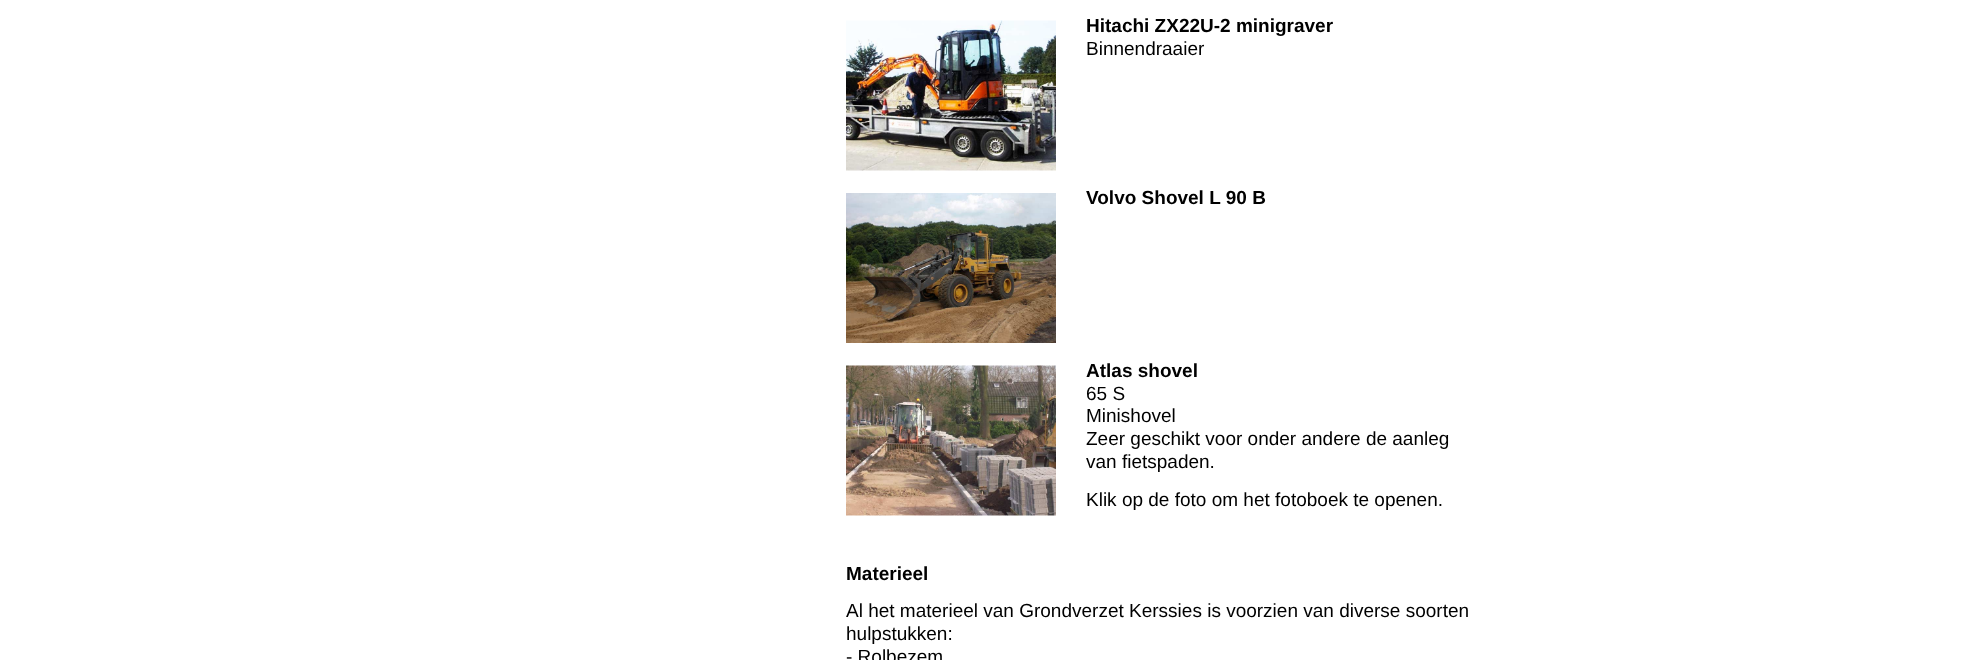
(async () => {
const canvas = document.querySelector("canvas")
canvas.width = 1966
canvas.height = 660
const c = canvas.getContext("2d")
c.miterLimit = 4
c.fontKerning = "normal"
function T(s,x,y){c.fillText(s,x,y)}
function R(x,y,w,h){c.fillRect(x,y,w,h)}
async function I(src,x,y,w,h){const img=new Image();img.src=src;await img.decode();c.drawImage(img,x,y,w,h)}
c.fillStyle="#fff"
R(0,0,1966,660)
await I("1.png",846,20,210,151)
c.font="bold 19px Liberation Sans"
c.fillStyle="#000"
T("Hitachi ZX22U-2 minigraver",1086,32)
c.font="19px Liberation Sans"
T("Binnendraaier",1086,55)
await I("2.png",846,193,210,150)
c.font="bold 19px Liberation Sans"
T("Volvo Shovel L 90 B",1086,204)
await I("3.png",846,365,210,151)
T("Atlas shovel",1086,377)
c.font="19px Liberation Sans"
T("65 S",1086,400)
T("Minishovel",1086,422)
T("Zeer geschikt voor onder andere de aanleg",1086,445)
T("van fietspaden.",1086,468)
T("Klik op de foto om het fotoboek te openen.",1086,506)
c.font="bold 19px Liberation Sans"
T("Materieel",846,580)
c.font="19px Liberation Sans"
T("Al het materieel van Grondverzet Kerssies is voorzien van diverse soorten",846,617)
T("hulpstukken:",846,640)
T("- Rolbezem",846,663)
})()
